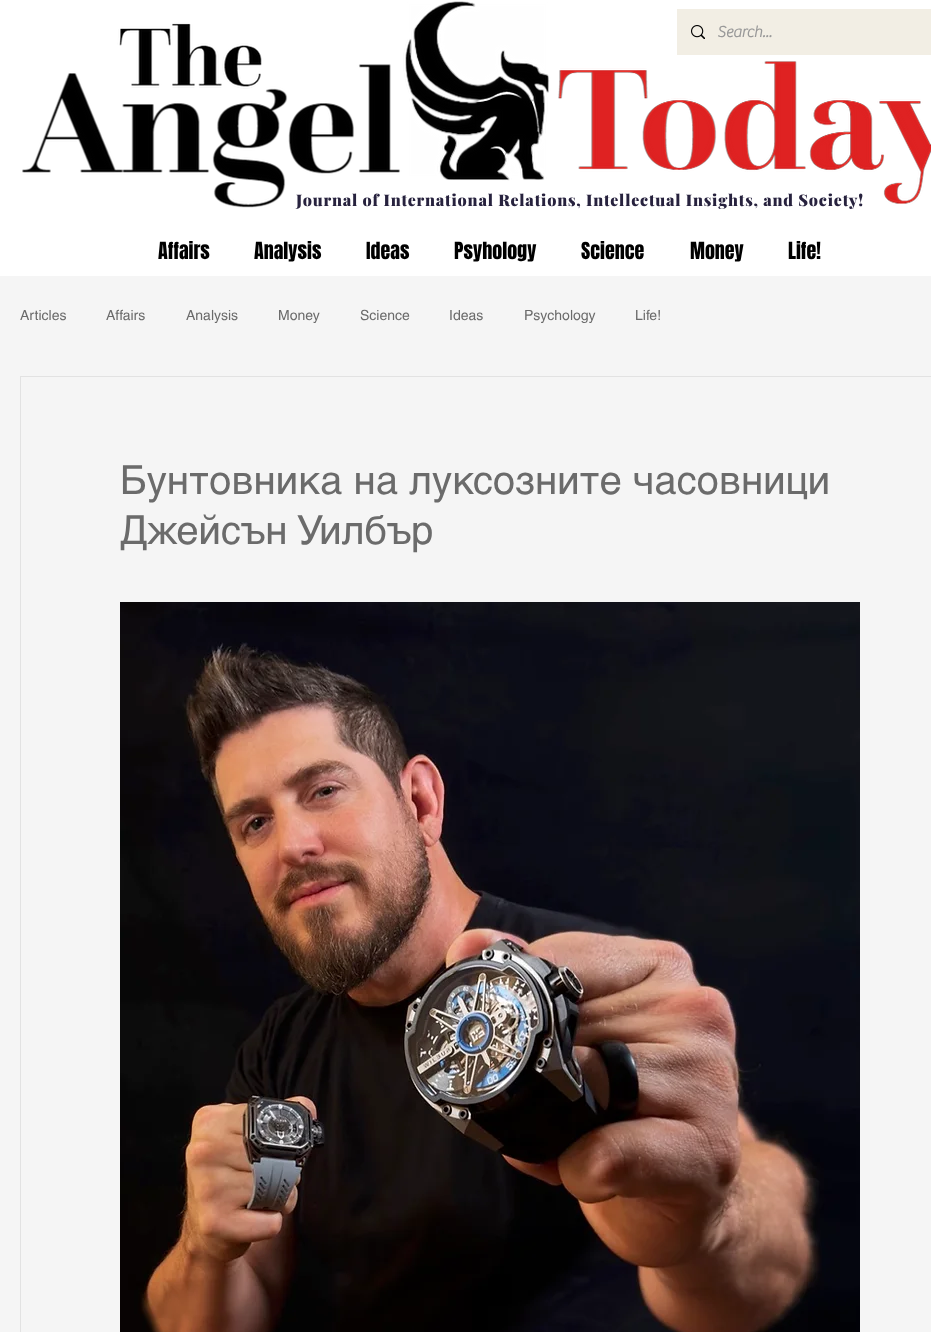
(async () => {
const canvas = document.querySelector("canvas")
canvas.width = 931
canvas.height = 1332
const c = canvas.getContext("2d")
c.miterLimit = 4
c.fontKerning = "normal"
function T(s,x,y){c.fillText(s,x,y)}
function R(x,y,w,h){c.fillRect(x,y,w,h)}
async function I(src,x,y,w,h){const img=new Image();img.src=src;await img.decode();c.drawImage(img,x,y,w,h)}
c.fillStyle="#fff"
R(0,0,931,1332)
await I("1.png",22,1,909,207)
c.fillStyle="#f2eee4"
R(677,9,254,46)
await I("2.png",691,25,14,14)
c.font="bold 16px 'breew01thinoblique'"
c.fillStyle="#999"
T("Search...",717,37)
c.letterSpacing="0.8px"
c.font="900 16px Playfair Display"
c.fillStyle="#27223e"
T("Journal of International Relations, Intellectual Insights, and Society!",296,206)
c.letterSpacing="0px"
c.font="20px Anton"
c.fillStyle="#000"
T("Affairs",158,259)
T("Analysis",254,259)
T("Ideas",366,259)
T("Psyhology",454,259)
T("Science",581,259)
T("Money",690,259)
T("Life!",788,259)
c.fillStyle="#f5f5f5"
R(0,276,931,1056)
c.font="14px helvetica"
c.fillStyle="#6b6b6b"
T("Articles",20,320)
T("Affairs",106,320)
T("Analysis",186,320)
T("Money",278,320)
T("Science",360,320)
T("Ideas",449,320)
T("Psychology",524,320)
T("Life!",635,320)
c.strokeStyle="#e2e2e2"
c.strokeRect(20.5,376.5,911,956)
c.font="40px helvetica"
T("Бунтовника на луксозните часовници",120,494)
T("Джейсън Уилбър",120,544)
await I("3.png",120,602,740,730)
})()
